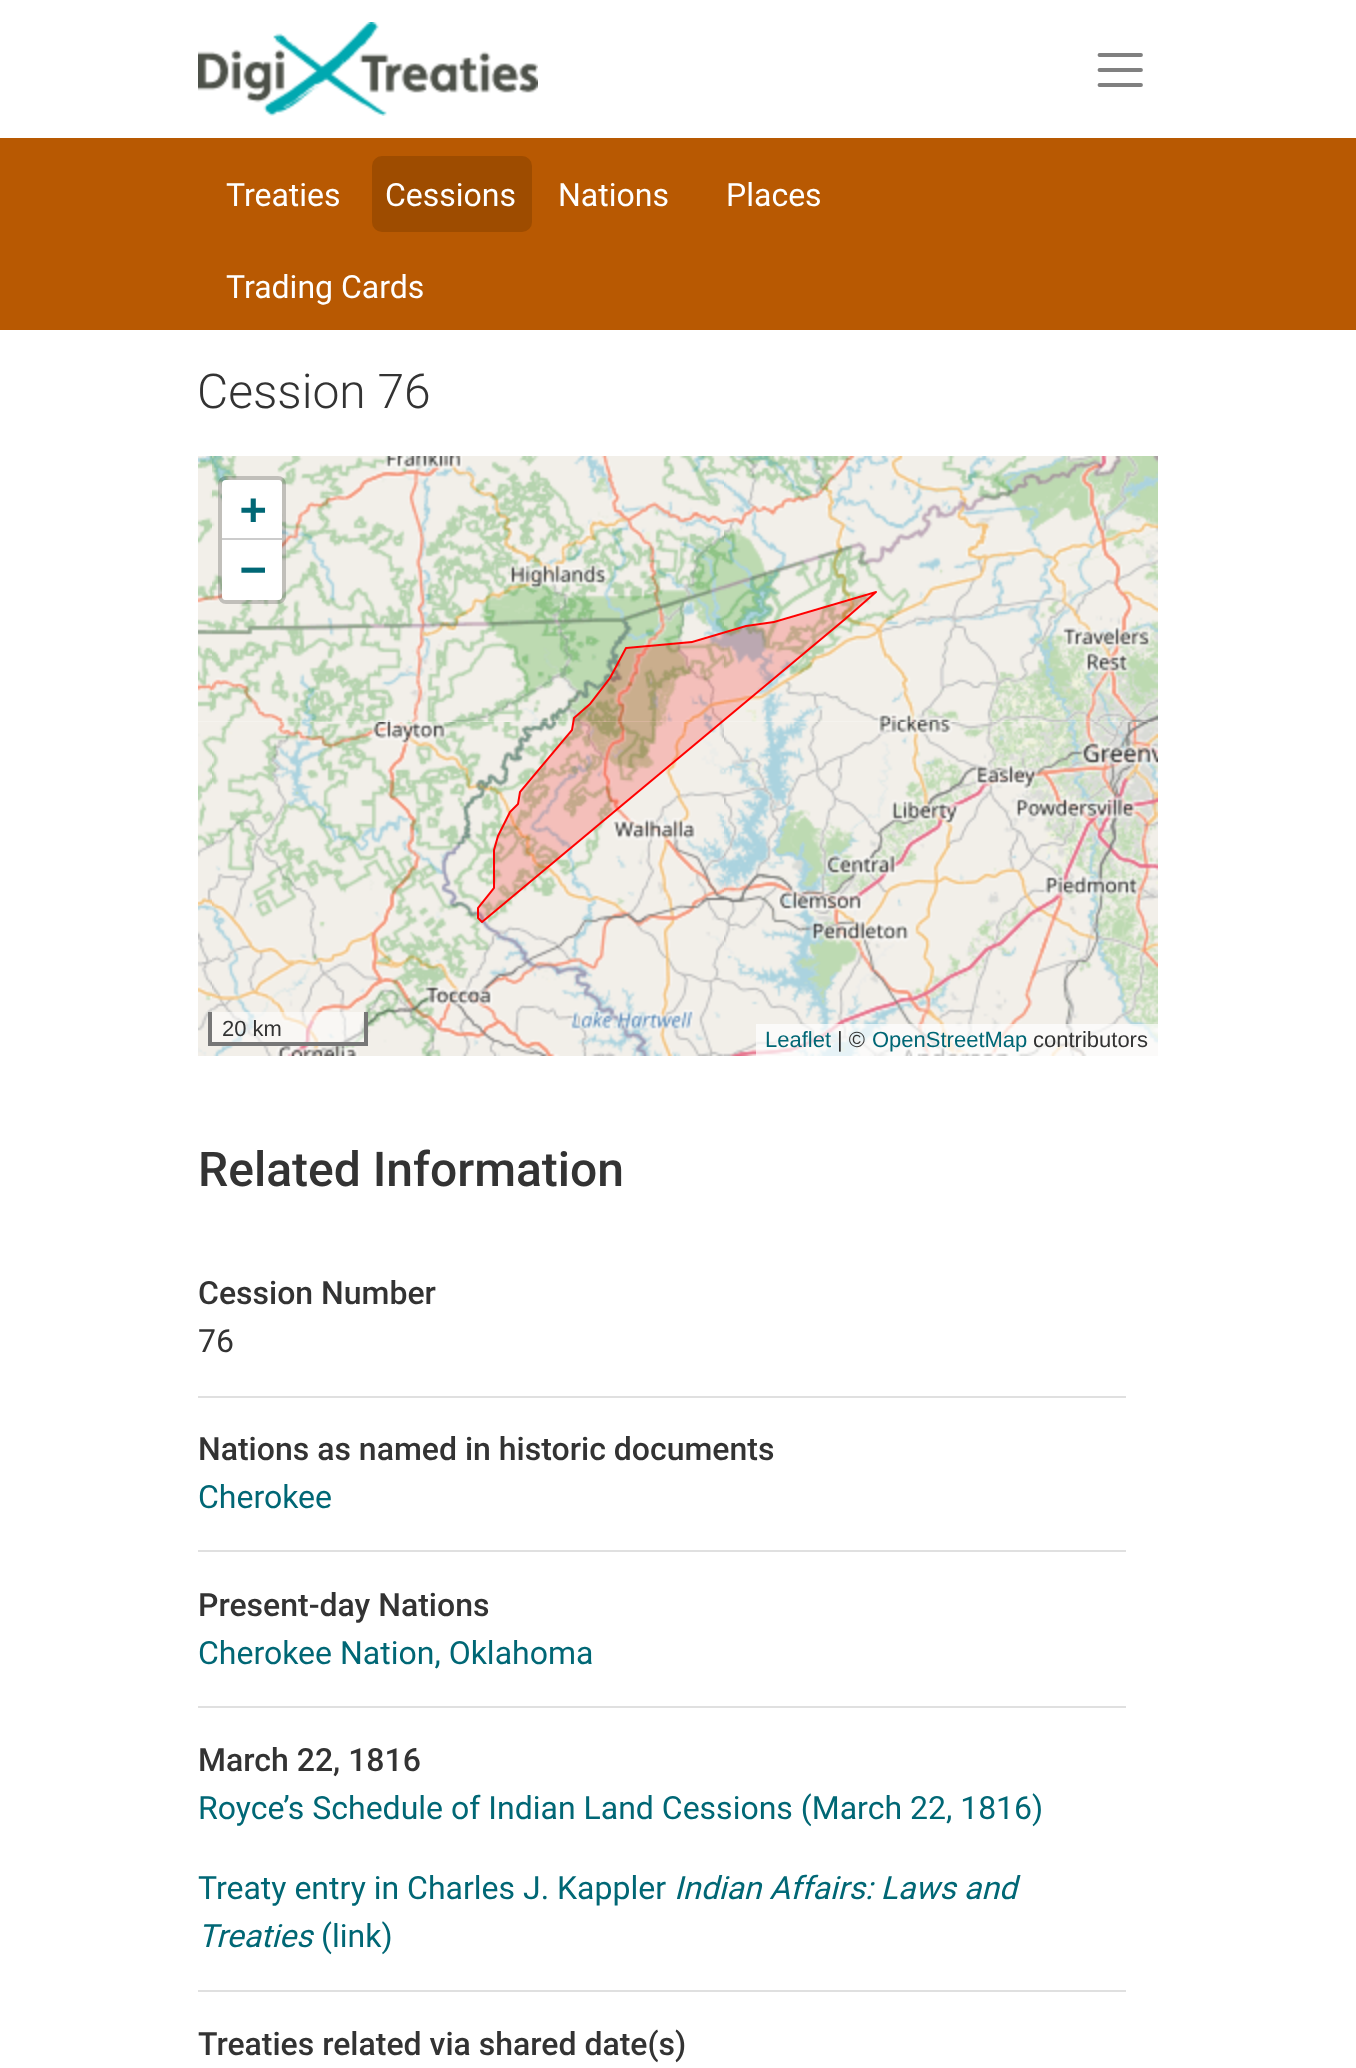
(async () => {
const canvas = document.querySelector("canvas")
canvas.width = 1356
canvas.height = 2068
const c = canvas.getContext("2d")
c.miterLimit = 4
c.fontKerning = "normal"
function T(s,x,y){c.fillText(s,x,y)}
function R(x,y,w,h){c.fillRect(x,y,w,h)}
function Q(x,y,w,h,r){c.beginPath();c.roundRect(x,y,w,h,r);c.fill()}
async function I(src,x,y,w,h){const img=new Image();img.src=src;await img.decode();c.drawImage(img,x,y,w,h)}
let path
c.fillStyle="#fff"
R(0,0,1356,2068)
c.fillStyle="#b85902"
R(0,138,1356,192)
await I("1.png",198,22,340,94)
path = new Path2D("M1099.5 55h41.5m-41.5 15h41.5m-41.5 15h41.5")
c.strokeStyle="#808080"
c.lineWidth=3.8
c.lineCap="round"
c.stroke(path)
c.font="32px Roboto"
c.fillStyle="#fff"
T("Treaties",226,206)
c.fillStyle="#9e4c00"
Q(372,156,160,76,10)
c.fillStyle="#fff"
T("Cessions",385,206)
T("Nations",558,206)
T("Places",726,206)
T("Trading Cards",226,298)
c.font="300 48px Roboto"
c.fillStyle="#333"
T("Cession 76",197,408)
await I("2.png",198,456,14,266)
await I("3.png",212,456,512,266)
await I("4.png",724,456,434,266)
await I("5.png",198,722,14,334)
await I("6.png",212,722,512,334)
await I("7.png",724,722,434,334)
await I("8.png",477,591,400,332)
c.beginPath()
c.roundRect(220,478,64,124,6)
c.strokeStyle="#00000033"
c.lineWidth=4
c.stroke()
c.fillStyle="#fff"
c.beginPath()
c.roundRect(222,480,60,60,[4,4,0,0])
c.fill()
c.fillStyle="#ccc"
R(222,538,60,2)
c.font="bold 44px DejaVu Sans Mono"
c.fillStyle="#006775"
T("+",240,524)
c.fillStyle="#fff"
c.beginPath()
c.roundRect(222,540,60,60,[0,0,4,4])
c.fill()
c.fillStyle="#006775"
T("−",240,584)
c.fillStyle="#ffffff80"
R(212,1012,152,30)
c.fillStyle="#777"
R(364,1012,4,34)
R(208,1042,160,4)
R(208,1012,4,34)
c.font="22px Liberation Sans"
c.fillStyle="#333"
T("20 km",222,1036)
c.fillStyle="#ffffffb3"
R(756,1024,402,32)
c.fillStyle="#006775"
T("Leaflet",765,1047)
c.fillStyle="#333"
T("| ©",837,1047)
c.fillStyle="#006775"
T("OpenStreetMap",872,1047)
c.fillStyle="#333"
T("contributors",1033,1047)
c.font="500 48px Roboto"
T("Related Information",198,1186)
c.fillStyle="#e0e0e0"
R(198,1396,928,2)
c.font="500 32px Roboto"
c.fillStyle="#333"
T("Cession Number",198,1304)
c.font="32px Roboto"
T("76",198,1352)
c.fillStyle="#e0e0e0"
R(198,1550,928,2)
c.font="500 32px Roboto"
c.fillStyle="#333"
T("Nations as named in historic documents",198,1460)
c.font="32px Roboto"
c.fillStyle="#006775"
T("Cherokee",198,1508)
c.fillStyle="#e0e0e0"
R(198,1706,928,2)
c.font="500 32px Roboto"
c.fillStyle="#333"
T("Present-day Nations",198,1616)
c.font="32px Roboto"
c.fillStyle="#006775"
T("Cherokee Nation, Oklahoma",198,1664)
c.fillStyle="#e0e0e0"
R(198,1990,928,2)
c.font="500 32px Roboto"
c.fillStyle="#333"
T("March 22, 1816",198,1771)
c.font="32px Roboto"
c.fillStyle="#006775"
T("Royce’s Schedule of Indian Land Cessions (March 22, 1816)",198,1819)
T("Treaty entry in Charles J. Kappler",198,1899)
c.font="italic 32px Roboto"
T("Indian Affairs: Laws and",674,1899)
T("Treaties",198,1947)
c.font="32px Roboto"
T("(link)",321,1947)
c.font="500 32px Roboto"
c.fillStyle="#333"
T("Treaties related via shared date(s)",198,2055)
})()
